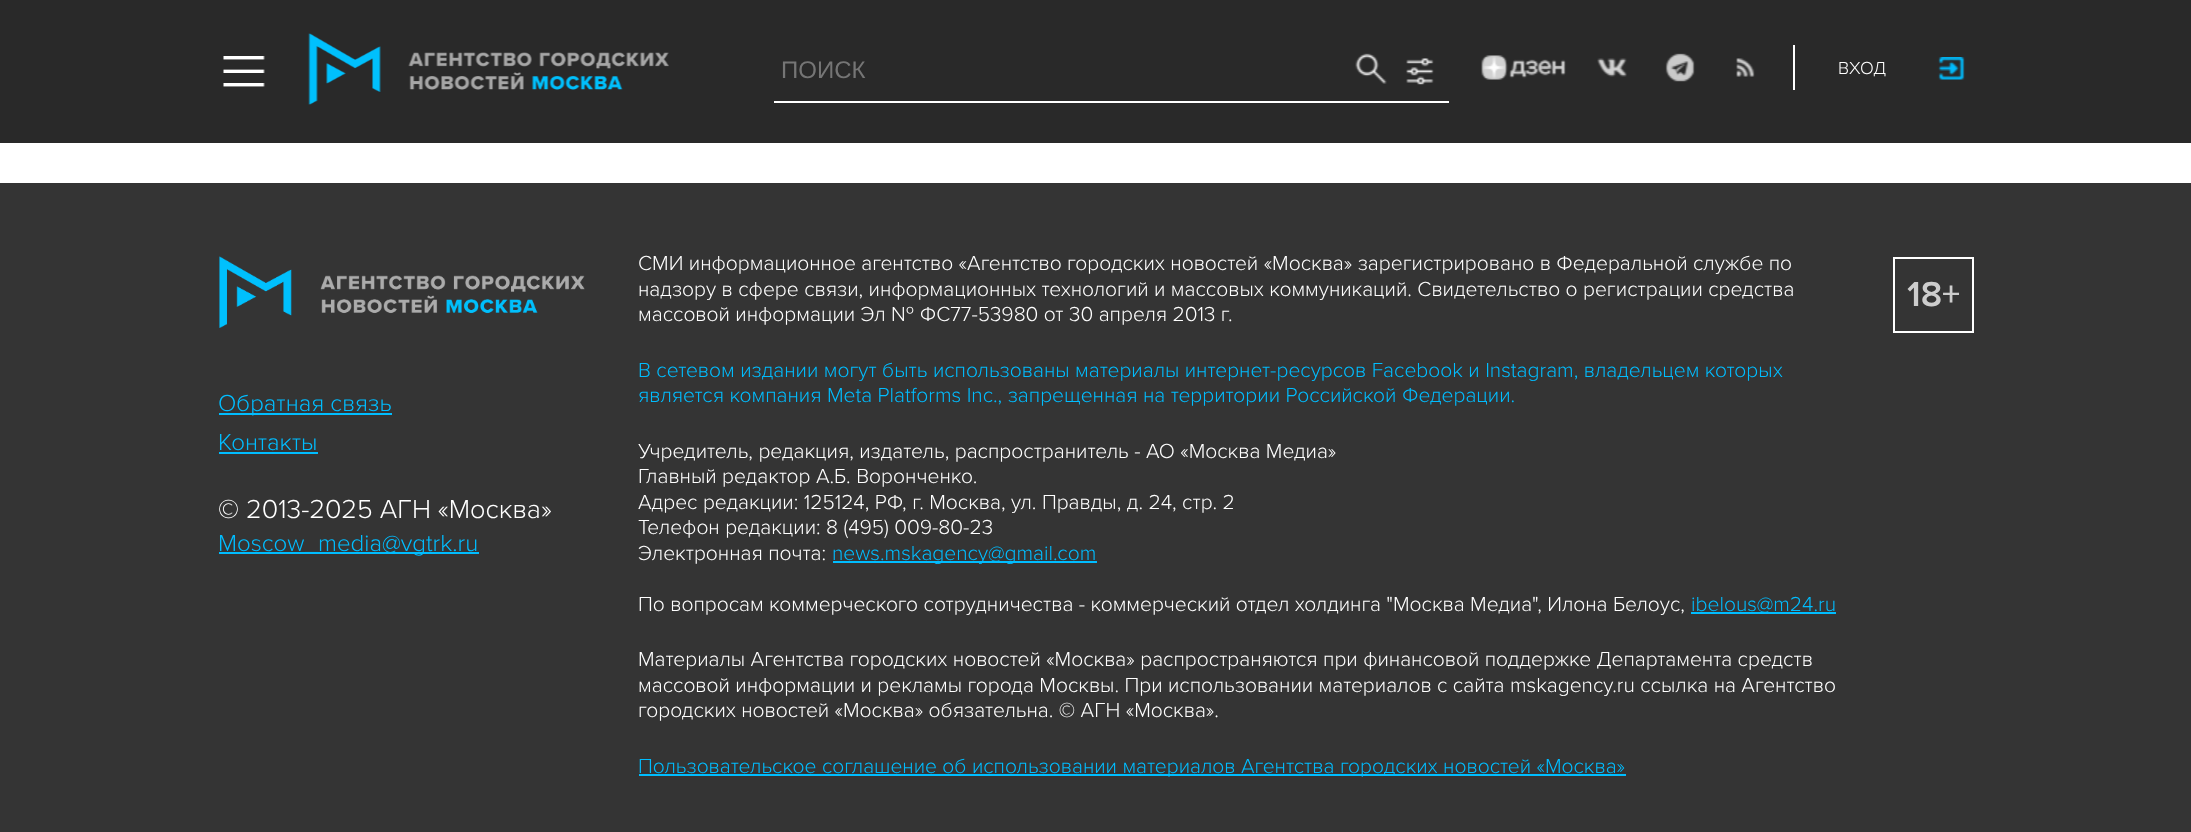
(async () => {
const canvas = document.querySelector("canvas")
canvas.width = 2191
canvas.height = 832
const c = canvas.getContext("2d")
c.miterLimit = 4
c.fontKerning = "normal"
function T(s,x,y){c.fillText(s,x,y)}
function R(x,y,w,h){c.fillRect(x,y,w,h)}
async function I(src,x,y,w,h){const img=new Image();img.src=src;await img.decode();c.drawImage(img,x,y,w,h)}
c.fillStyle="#fff"
R(0,0,2191,832)
c.fillStyle="#292929"
R(0,0,2191,143)
await I("1.png",223,56,42,31)
await I("2.png",308,33,361,72)
c.fillStyle="#fff"
R(774,101,675,2)
c.font="24px Liberation Sans"
c.fillStyle="#757575"
T("ПОИСК",781,78)
await I("3.png",1355,53,32,31)
await I("4.png",1406,58,28,27)
c.fillStyle="#fff"
R(1793,45,2,45)
await I("5.png",1481,55,85,25)
await I("6.png",1597,58,30,19)
await I("7.png",1665,53,30,29)
await I("8.png",1736,58,19,19)
await I("9.png",1938,57,27,23)
c.font="300 18px Proxima Nova"
T("ВХОД",1838,74)
c.fillStyle="#343434"
R(0,183,2191,649)
c.font="300 21px Proxima Nova"
c.fillStyle="#fff"
T("СМИ информационное агентство «Агентство городских новостей «Москва» зарегистрировано в Федеральной службе по",638,270)
T("надзору в сфере связи, информационных технологий и массовых коммуникаций. Свидетельство о регистрации средства",638,296)
T("массовой информации Эл № ФС77-53980 от 30 апреля 2013 г.",638,321)
c.fillStyle="#00bdff"
T("В сетевом издании могут быть использованы материалы интернет-ресурсов Facebook и Instagram, владельцем которых",638,377)
T("является компания Meta Platforms Inc., запрещенная на территории Российской Федерации.",638,402)
c.fillStyle="#fff"
T("Учредитель, редакция, издатель, распространитель - АО «Москва Медиа»",638,458)
T("Главный редактор А.Б. Воронченко.",638,483)
T("Адрес редакции: 125124, РФ, г. Москва, ул. Правды, д. 24, стр. 2",638,509)
T("Телефон редакции: 8 (495) 009-80-23",638,534)
T("Электронная почта:",638,560)
c.fillStyle="#00bdff"
R(833,561,264,2)
T("news.mskagency@gmail.com",832,560)
c.fillStyle="#fff"
T("По вопросам коммерческого сотрудничества - коммерческий отдел холдинга \"Москва Медиа\", Илона Белоус,",638,611)
c.fillStyle="#00bdff"
R(1691,612,145,2)
T("ibelous@m24.ru",1691,611)
c.fillStyle="#fff"
T("Материалы Агентства городских новостей «Москва» распространяются при финансовой поддержке Департамента средств",638,666)
T("массовой информации и рекламы города Москвы. При использовании материалов с сайта mskagency.ru ссылка на Агентство",638,692)
T("городских новостей «Москва» обязательна. © АГН «Москва».",638,717)
c.fillStyle="#00bdff"
R(639,774,987,2)
T("Пользовательское соглашение об использовании материалов Агентства городских новостей «Москва»",638,773)
c.strokeStyle="#fff"
c.lineWidth=2
c.strokeRect(1894,258,79,74)
c.font="600 36px Proxima Nova"
c.fillStyle="#cdcdcd"
T("18+",1907,306)
await I("10.png",219,256,366,72)
c.fillStyle="#00bdff"
R(219,413,173,2)
c.font="300 24px Proxima Nova"
T("Обратная связь",218,411)
T("Контакты",218,450)
R(219,452,99,2)
c.font="300 27px Proxima Nova"
c.fillStyle="#fff"
T("© 2013-2025 АГН «Москва»",218,518)
c.fillStyle="#00bdff"
R(219,552,260,2)
c.font="300 24px Proxima Nova"
T("Moscow_media@vgtrk.ru",218,551)
})()
